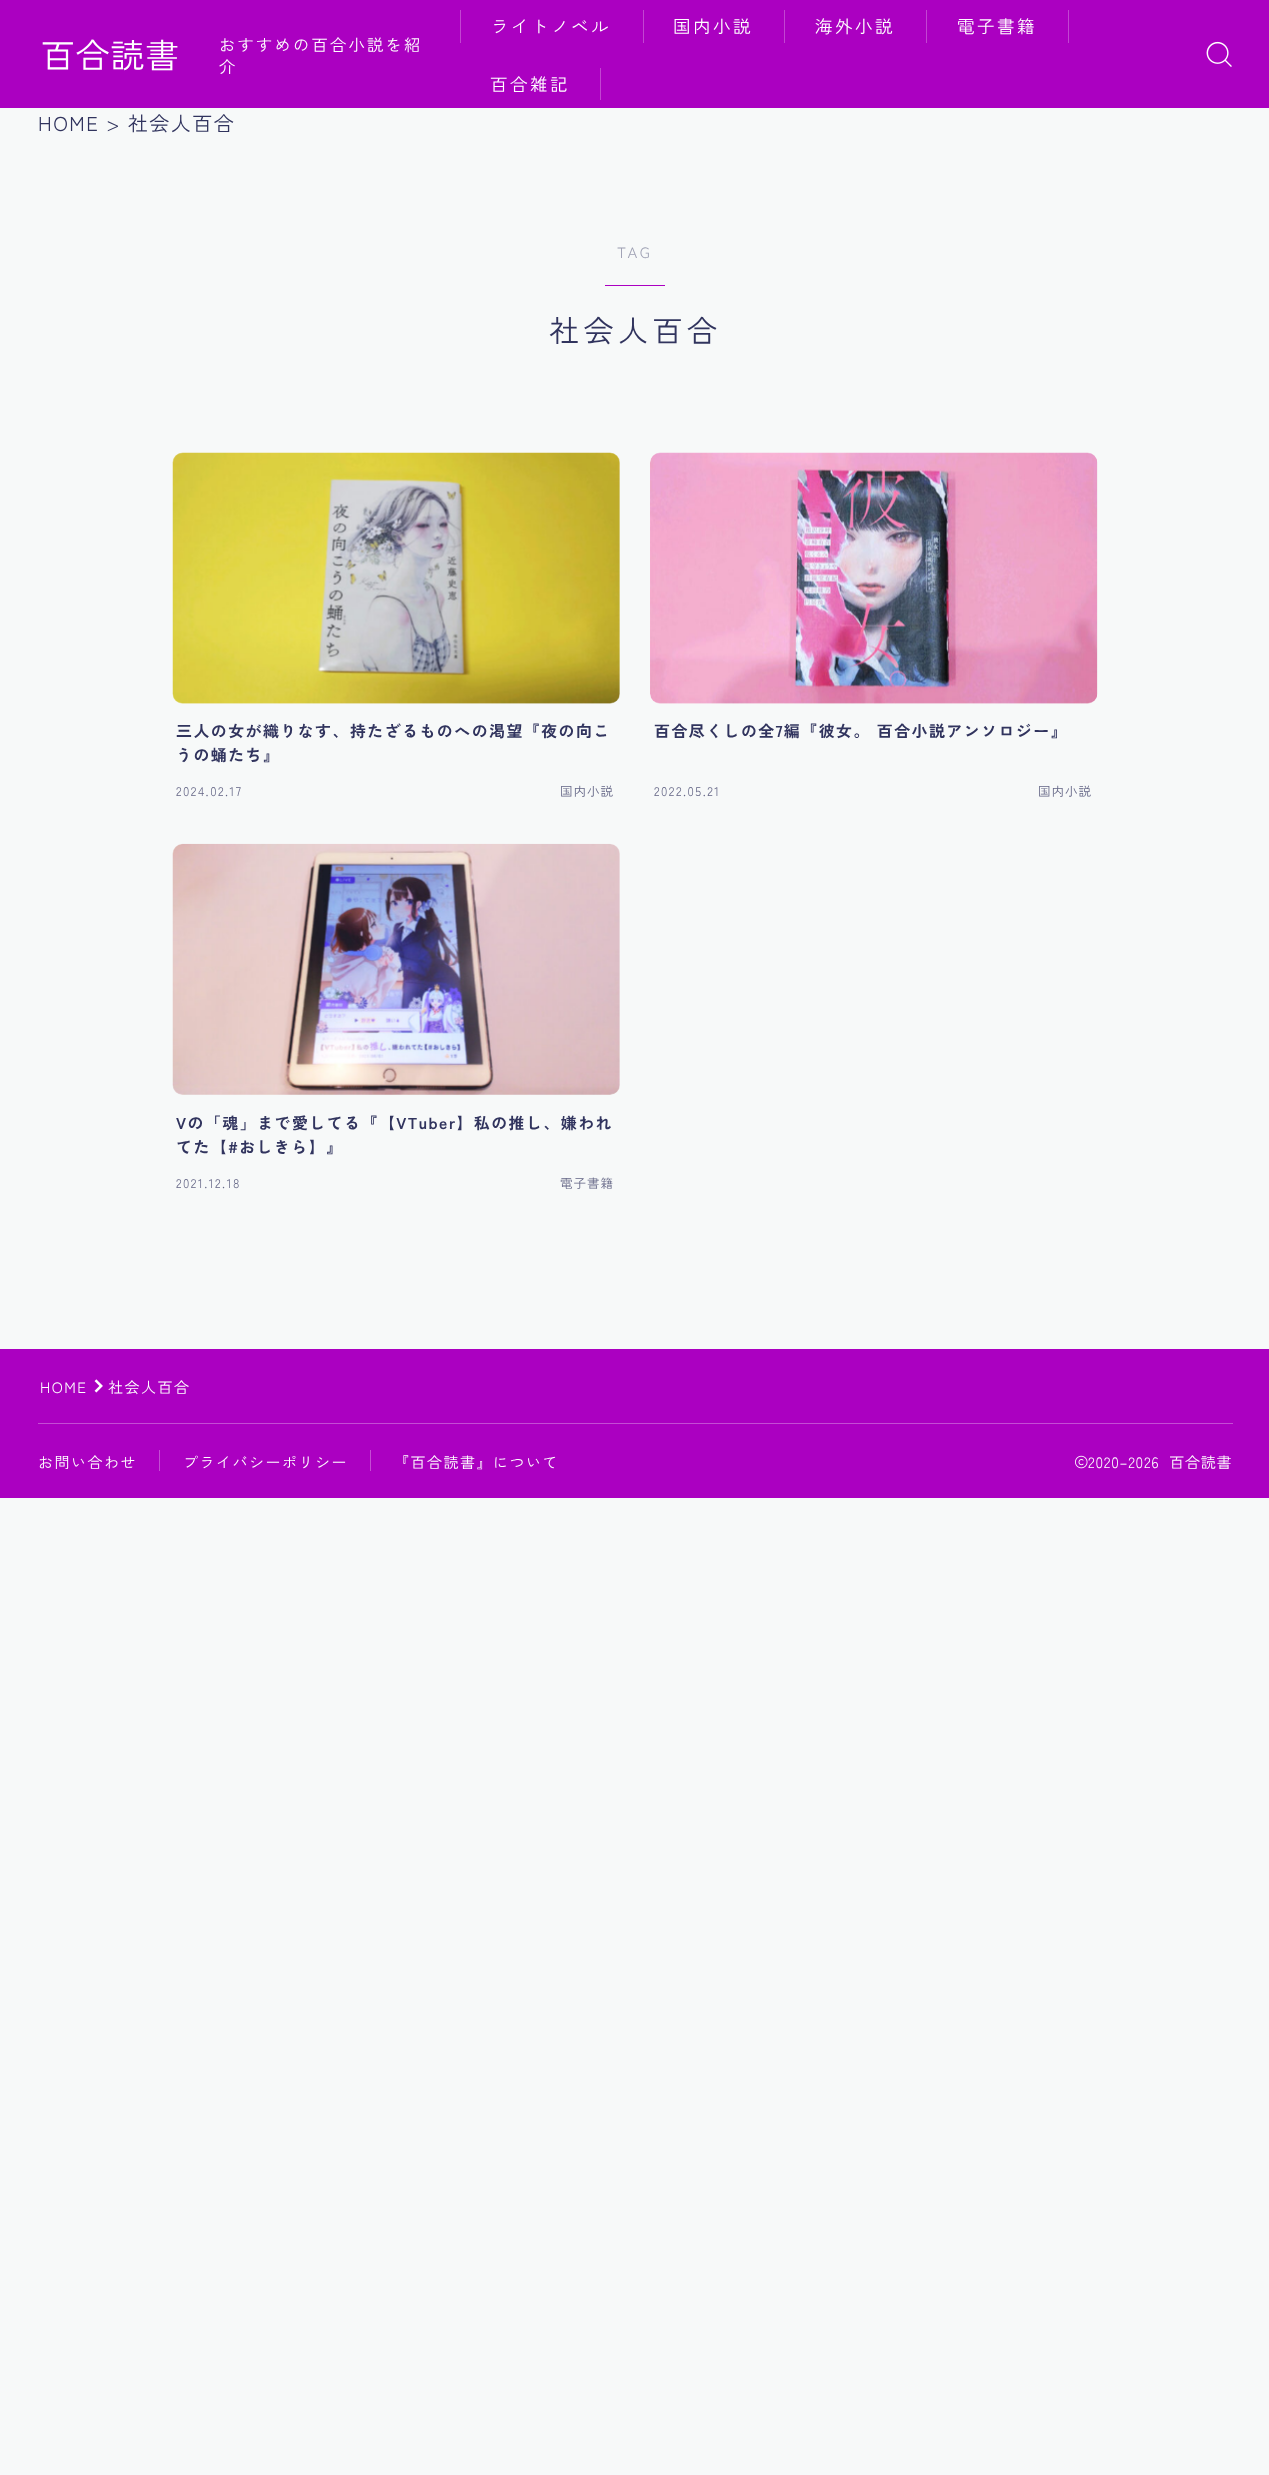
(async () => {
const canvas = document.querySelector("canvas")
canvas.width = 1269
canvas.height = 2475
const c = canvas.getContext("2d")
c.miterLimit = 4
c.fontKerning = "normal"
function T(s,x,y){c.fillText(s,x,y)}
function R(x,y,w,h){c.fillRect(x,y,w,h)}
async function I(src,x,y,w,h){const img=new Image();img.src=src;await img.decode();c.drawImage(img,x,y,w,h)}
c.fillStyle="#f7f9f9"
R(0,0,1269,2475)
c.fillStyle="#ab00c1"
R(0,0,1269,108)
c.letterSpacing="1px"
c.font="33.75px Zen Kaku Gothic New"
c.fillStyle="#fff"
T("百合読書",41,68)
c.letterSpacing="2.25px"
c.font="16.25px Zen Kaku Gothic New"
T("おすすめの百合小説を紹",219,51)
T("介",219,73)
c.fillStyle="#c245d2"
R(643,10,1,33)
R(460,10,1,33)
c.letterSpacing="2.5px"
c.font="17.5px Zen Kaku Gothic New"
c.fillStyle="#fff"
T("ライトノベル",491,33)
c.fillStyle="#c245d2"
R(784,10,1,33)
c.fillStyle="#fff"
T("国内小説",673,33)
c.fillStyle="#c245d2"
R(926,10,1,33)
c.fillStyle="#fff"
T("海外小説",815,33)
c.fillStyle="#c245d2"
R(1068,10,1,33)
c.fillStyle="#fff"
T("電子書籍",957,33)
c.fillStyle="#c245d2"
R(600,68,1,32)
c.fillStyle="#fff"
T("百合雑記",490,91)
await I("1.png",1206,41,26,26)
c.letterSpacing="1.5px"
c.font="20px Zen Kaku Gothic New"
c.fillStyle="#31345e"
T("HOME > 社会人百合",38,131)
c.letterSpacing="3px"
c.font="15px Zen Kaku Gothic New"
c.fillStyle="#9ea0b3"
T("TAG",617,258)
c.fillStyle="#ab00c1"
R(605,285,60,1)
c.letterSpacing="4.5px"
c.font="30px Zen Kaku Gothic New"
c.fillStyle="#31345e"
T("社会人百合",549,342)
await I("2.png",172,452,448,252)
c.letterSpacing="1.5px"
c.font="bold 15.9px Zen Kaku Gothic New"
T("三人の女が織りなす、持たざるものへの渇望『夜の向こ",176,737)
T("うの蛹たち』",176,761)
c.font="12.5px Zen Kaku Gothic New"
c.fillStyle="#636585"
T("2024.02.17",176,796)
c.letterSpacing="1px"
T("国内小説",560,796)
await I("3.png",650,452,448,252)
c.letterSpacing="1.5px"
c.font="bold 15.9px Zen Kaku Gothic New"
c.fillStyle="#31345e"
T("百合尽くしの全7編『彼女。 百合小説アンソロジー』",654,737)
c.font="12.5px Zen Kaku Gothic New"
c.fillStyle="#636585"
T("2022.05.21",654,796)
c.letterSpacing="1px"
T("国内小説",1038,796)
await I("4.png",172,843,448,252)
c.letterSpacing="1.5px"
c.font="bold 15.9px Zen Kaku Gothic New"
c.fillStyle="#31345e"
T("Vの「魂」まで愛してる『【VTuber】私の推し、嫌われ",176,1129)
T("てた【#おしきら】』",176,1153)
c.font="12.5px Zen Kaku Gothic New"
c.fillStyle="#636585"
T("2021.12.18",176,1188)
c.letterSpacing="1px"
T("電子書籍",560,1188)
c.fillStyle="#ab00c1"
R(0,1349,1269,149)
c.letterSpacing="1.5px"
c.font="15px Zen Kaku Gothic New"
c.fillStyle="#fff"
T("HOME",40,1393)
await I("5.png",94,1379,9,14)
T("社会人百合",108,1393)
c.fillStyle="#c44dd4"
R(38,1423,1195,1)
c.fillStyle="#fff"
T("お問い合わせ",38,1468)
c.fillStyle="#c44dd4"
R(159,1450,1,21)
c.fillStyle="#fff"
T("プライバシーポリシー",183,1468)
c.fillStyle="#c44dd4"
R(370,1450,1,21)
c.fillStyle="#fff"
T("『百合読書』について",394,1468)
await I("6.png",1075,1455,13,14)
c.letterSpacing="0.75px"
T("2020–2026  百合読書",1088,1468)
})()
